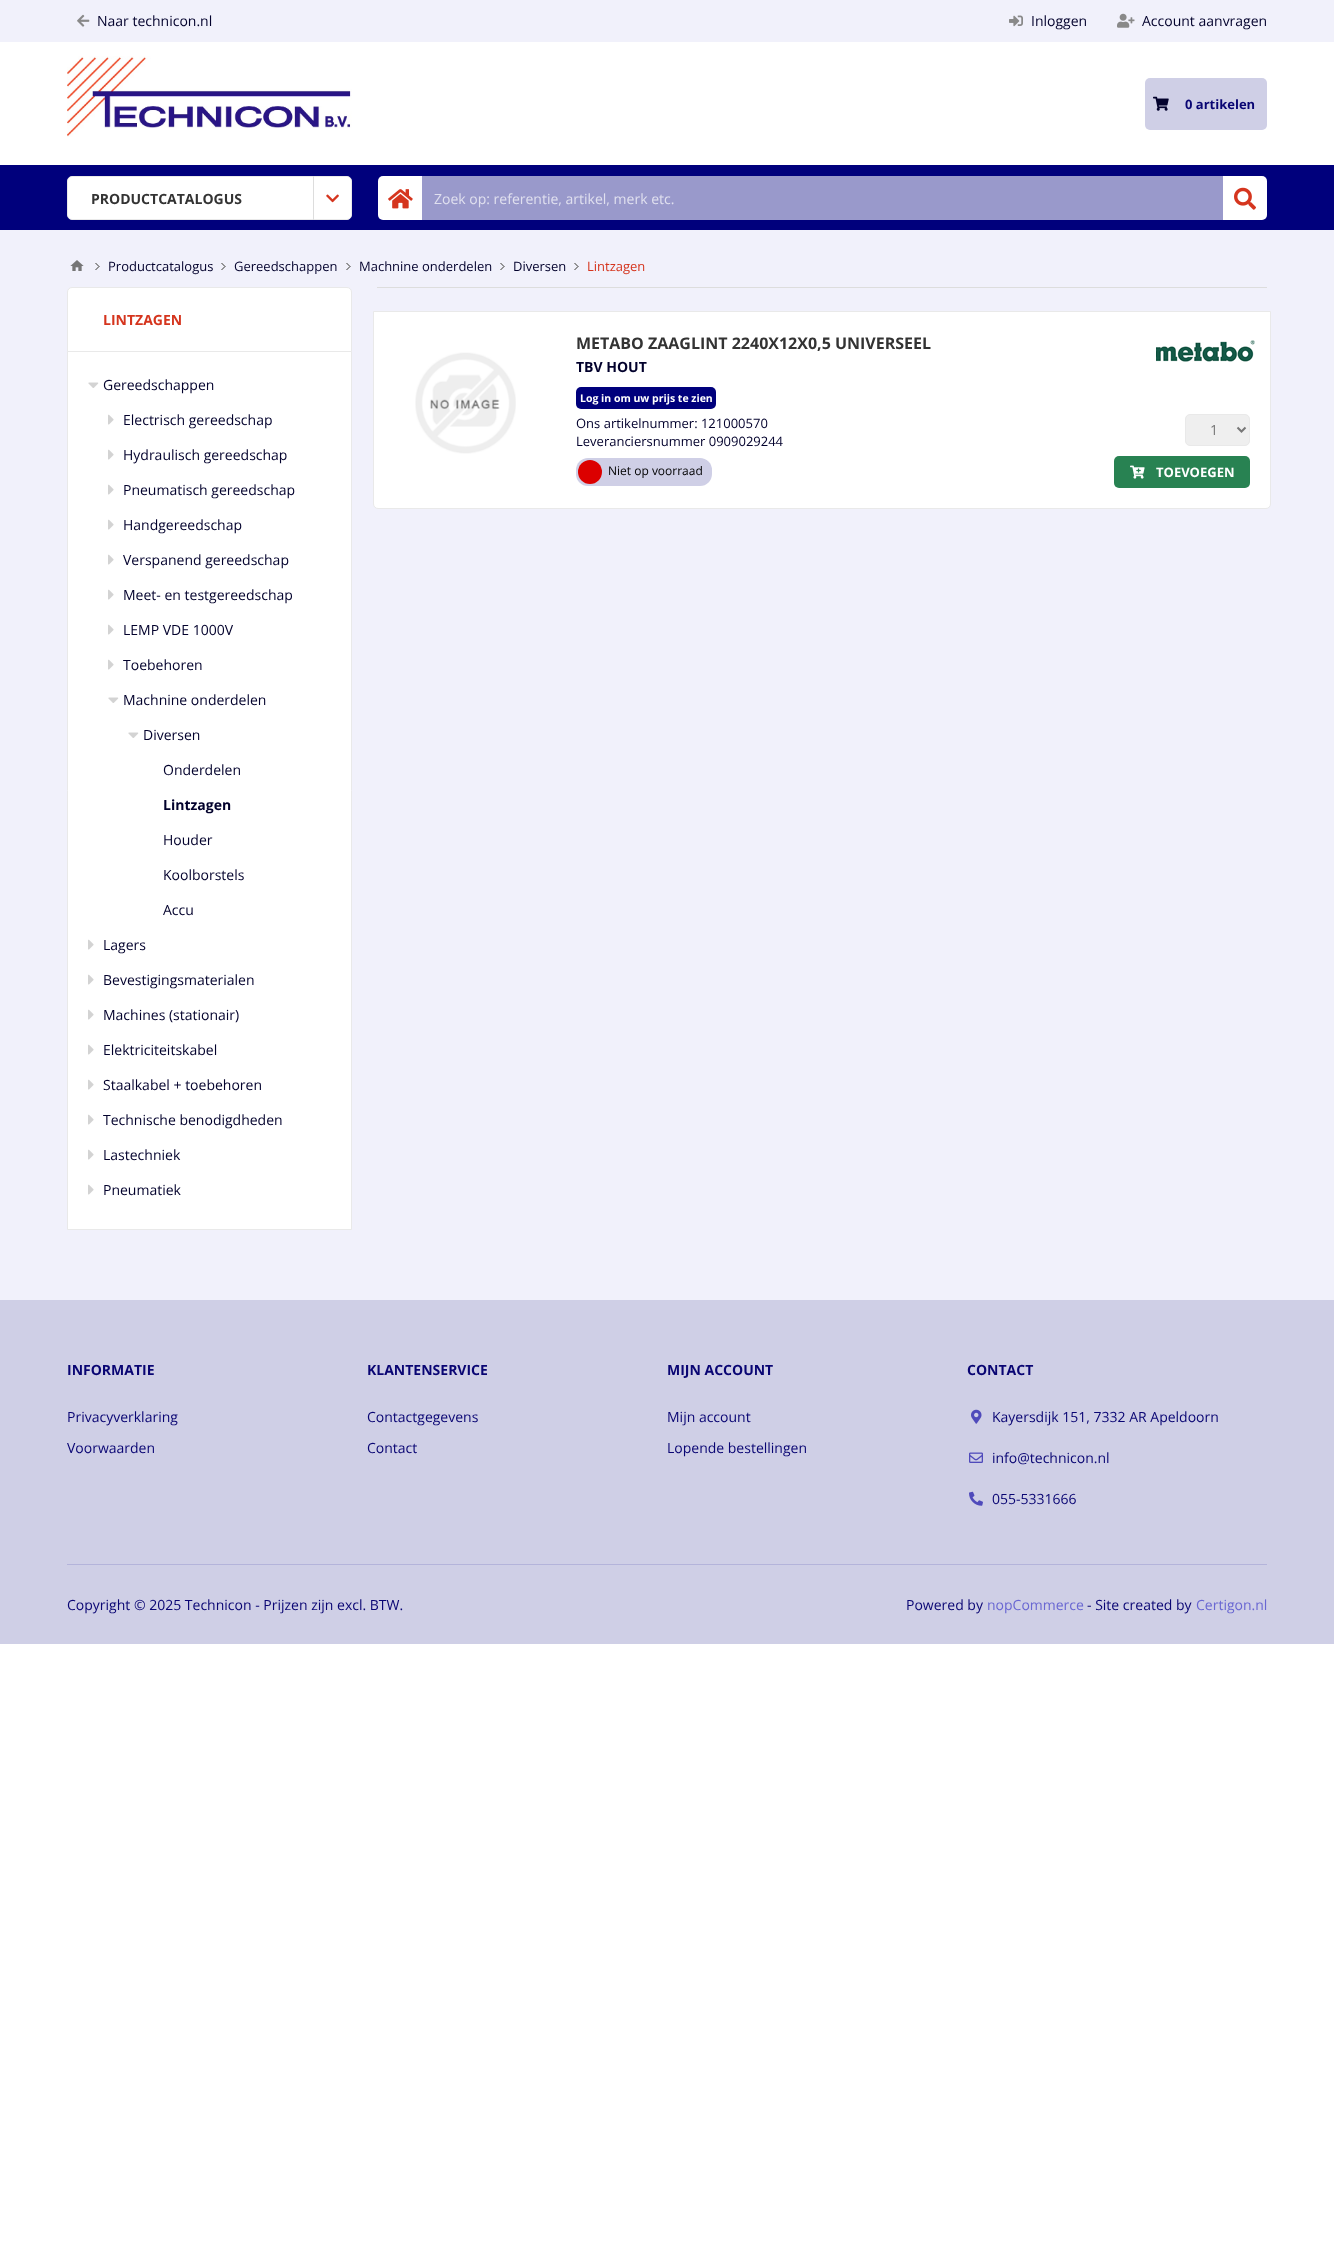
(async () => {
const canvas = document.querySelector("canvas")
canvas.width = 1334
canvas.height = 2247
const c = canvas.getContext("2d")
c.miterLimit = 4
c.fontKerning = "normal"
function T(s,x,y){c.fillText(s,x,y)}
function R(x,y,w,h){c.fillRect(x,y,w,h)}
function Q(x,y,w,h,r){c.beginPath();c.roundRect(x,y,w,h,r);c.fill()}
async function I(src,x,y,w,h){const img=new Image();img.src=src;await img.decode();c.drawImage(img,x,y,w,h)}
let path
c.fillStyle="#fff"
R(0,0,1334,2247)
c.fillStyle="#f1f1fb"
R(0,0,1334,1300)
await I("1.png",77,14,13,13)
c.font="14px Open Sans"
c.fillStyle="#02012c"
T("Naar technicon.nl",97,26)
await I("2.png",1009,15,14,12)
T("Inloggen",1031,26)
await I("3.png",1117,13,18,15)
T("Account aanvragen",1142,26)
c.fillStyle="#fff"
R(0,42,1334,123)
await I("4.png",67,56,285,81)
c.fillStyle="#cfcfe6"
c.beginPath()
c.roundRect(1177,78,90,52,[0,5,5,0])
c.fill()
c.beginPath()
c.roundRect(1145,78,32,52,[5,0,0,5])
c.fill()
await I("5.png",1153,96,16,15)
c.font="bold 13px Open Sans"
c.fillStyle="#090573"
T("0 artikelen",1185,109)
c.fillStyle="#00007c"
R(0,165,1334,65)
c.fillStyle="#fff"
c.beginPath()
c.roundRect(67.5,176.5,284,43,4.5)
c.fill()
c.strokeStyle="#e9e9e9"
c.stroke()
c.font="bold 14px Open Sans"
c.fillStyle="#333"
T("PRODUCTCATALOGUS",91,204)
c.fillStyle="#ddd"
R(313,176,1,44)
await I("6.png",326,194,13,9)
c.fillStyle="#fff"
c.beginPath()
c.roundRect(378,176,44,44,[5,0,0,5])
c.fill()
await I("7.png",388,189,25,20)
c.fillStyle="#9999cb"
R(422,176,801,44)
c.font="14px Open Sans"
c.fillStyle="#e0e0ef"
T("Zoek op: referentie, artikel, merk etc.",434,204)
c.fillStyle="#fff"
c.beginPath()
c.roundRect(1223,176,44,44,[0,5,5,0])
c.fill()
await I("8.png",1234,187,22,23)
await I("9.png",70,260,14,11)
await I("10.png",95,263,5,7)
c.font="13px Open Sans"
c.fillStyle="#02012c"
T("Productcatalogus",108,271)
await I("10.png",221,263,5,7)
T("Gereedschappen",234,271)
await I("10.png",346,263,5,7)
T("Machnine onderdelen",359,271)
await I("10.png",500,263,5,7)
T("Diversen",513,271)
await I("10.png",574,263,5,7)
c.fillStyle="#d5351e"
T("Lintzagen",587,271)
c.fillStyle="#fff"
c.beginPath()
c.roundRect(67.5,287.5,284,64,[4.5,4.5,0,0])
c.fill()
c.stroke()
c.font="bold 14px Open Sans"
c.fillStyle="#d5351e"
T("LINTZAGEN",103,325)
c.fillStyle="#fff"
c.beginPath()
c.rect(67.5,351.5,284,878)
c.fill()
c.stroke()
await I("11.png",88,382,11,6)
c.font="14px Open Sans"
c.fillStyle="#02012c"
T("Gereedschappen",103,390)
await I("12.png",108,414,6,11)
T("Electrisch gereedschap",123,425)
await I("12.png",108,449,6,11)
T("Hydraulisch gereedschap",123,460)
await I("12.png",108,484,6,11)
T("Pneumatisch gereedschap",123,495)
await I("12.png",108,519,6,11)
T("Handgereedschap",123,530)
await I("12.png",108,554,6,11)
T("Verspanend gereedschap",123,565)
await I("12.png",108,589,6,11)
T("Meet- en testgereedschap",123,600)
await I("12.png",108,624,6,11)
T("LEMP VDE 1000V",123,635)
await I("12.png",108,659,6,11)
T("Toebehoren",123,670)
await I("11.png",108,697,11,6)
T("Machnine onderdelen",123,705)
await I("11.png",128,732,11,6)
T("Diversen",143,740)
T("Onderdelen",163,775)
c.font="bold 14px Open Sans"
T("Lintzagen",163,810)
c.font="14px Open Sans"
T("Houder",163,845)
T("Koolborstels",163,880)
T("Accu",163,915)
await I("12.png",88,939,6,11)
T("Lagers",103,950)
await I("12.png",88,974,6,11)
T("Bevestigingsmaterialen",103,985)
await I("12.png",88,1009,6,11)
T("Machines (stationair)",103,1020)
await I("12.png",88,1044,6,11)
T("Elektriciteitskabel",103,1055)
await I("12.png",88,1079,6,11)
T("Staalkabel + toebehoren",103,1090)
await I("12.png",88,1114,6,11)
T("Technische benodigdheden",103,1125)
await I("12.png",88,1149,6,11)
T("Lastechniek",103,1160)
await I("12.png",88,1184,6,11)
T("Pneumatiek",103,1195)
c.fillStyle="#ddd"
R(377,287,890,1)
c.fillStyle="#fff"
c.beginPath()
c.roundRect(373.5,311.5,897,197,[0,0,4.5,4.5])
c.fill()
c.stroke()
await I("13.png",415,352,101,102)
c.font="bold 16px Open Sans"
c.fillStyle="#333"
T("METABO ZAAGLINT 2240X12X0,5 UNIVERSEEL",576,349)
await I("14.png",1156,340,99,22)
c.font="bold 14px Open Sans"
c.fillStyle="#02012c"
T("TBV HOUT",576,372)
c.fillStyle="#00007c"
Q(576,387,140,22,5)
c.font="bold 10.5px Open Sans"
c.fillStyle="#fff"
T("Log in om uw prijs te zien",580,402)
c.font="13px Open Sans"
c.fillStyle="#02012c"
T("Ons artikelnummer: 121000570",576,428)
T("Leveranciersnummer 0909029244",576,446)
c.fillStyle="#cfcfe6"
Q(576,458,136,28,12)
c.fillStyle="#dc0000"
c.beginPath()
c.arc(590,472,12,0,7)
c.fill()
c.font="12px Open Sans"
c.fillStyle="#000"
T("Niet op voorraad",608,475)
c.fillStyle="#efefef"
c.beginPath()
c.roundRect(1185.5,414.5,64,31,4.5)
c.fill()
c.stroke()
path = new Path2D("M1237.5 427.5l4 4l4-4")
c.strokeStyle="#777"
c.lineWidth=2
c.stroke(path)
c.font="14px Open Sans"
c.fillStyle="#777"
T("1",1210,435)
c.fillStyle="#288252"
Q(1114,456,136,32,5)
await I("15.png",1130,465,15,14)
c.font="bold 13px Open Sans"
c.fillStyle="#fff"
T("TOEVOEGEN",1156,477)
c.fillStyle="#cfcfe6"
R(0,1300,1334,344)
c.font="bold 14px Open Sans"
c.fillStyle="#090573"
T("INFORMATIE",67,1375)
c.font="14px Open Sans"
T("Privacyverklaring",67,1422)
T("Voorwaarden",67,1453)
c.font="bold 14px Open Sans"
T("KLANTENSERVICE",367,1375)
c.font="14px Open Sans"
T("Contactgegevens",367,1422)
T("Contact",367,1453)
c.font="bold 14px Open Sans"
T("MIJN ACCOUNT",667,1375)
c.font="14px Open Sans"
T("Mijn account",667,1422)
T("Lopende bestellingen",667,1453)
c.font="bold 14px Open Sans"
T("CONTACT",967,1375)
await I("16.png",971,1409,11,15)
c.font="14px Open Sans"
T("Kayersdijk 151, 7332 AR Apeldoorn",992,1422)
await I("17.png",969,1452,14,11)
T("info@technicon.nl",992,1463)
await I("18.png",969,1491,14,15)
T("055-5331666",992,1504)
c.fillStyle="#b4b4da"
R(67,1564,1200,1)
c.fillStyle="#090573"
T("Copyright © 2025 Technicon - Prijzen zijn excl. BTW.",67,1610)
T("Powered by",906,1610)
c.fillStyle="#6967d2"
T("nopCommerce",987,1610)
c.fillStyle="#090573"
T("- Site created by",1087,1610)
c.fillStyle="#6967d2"
T("Certigon.nl",1196,1610)
})()
